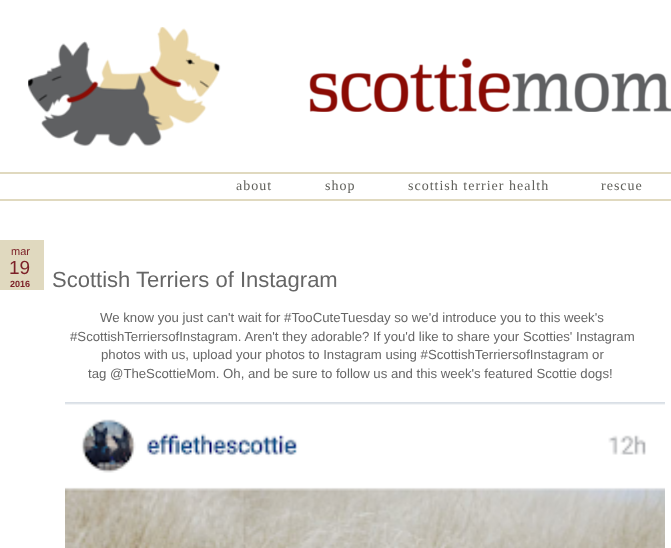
(async () => {
const canvas = document.querySelector("canvas")
canvas.width = 671
canvas.height = 548
const c = canvas.getContext("2d")
c.miterLimit = 4
c.fontKerning = "normal"
function T(s,x,y){c.fillText(s,x,y)}
function R(x,y,w,h){c.fillRect(x,y,w,h)}
async function I(src,x,y,w,h){const img=new Image();img.src=src;await img.decode();c.drawImage(img,x,y,w,h)}
c.fillStyle="#fff"
R(0,0,671,548)
await I("1.png",28,27,643,120)
c.fillStyle="#e0d9bf"
R(0,172,671,2)
R(0,199,671,2)
c.letterSpacing="1px"
c.font="14px Liberation Serif"
c.fillStyle="#60605b"
T("about",236,190)
T("shop",325,190)
T("scottish terrier health",408,190)
T("rescue",601,190)
c.fillStyle="#e0d9bf"
R(0,240,44,50)
c.letterSpacing="0px"
c.font="11px Liberation Sans"
c.fillStyle="#7c2128"
T("mar",11,255)
c.font="19px Liberation Sans"
T("19",9,274)
c.font="bold 9px Liberation Sans"
T("2016",10,287)
c.font="22px Liberation Sans"
c.fillStyle="#666"
T("Scottish Terriers of Instagram",52,287)
c.font="13.2px Liberation Sans"
T("We know you just can't wait for #TooCuteTuesday so we'd introduce you to this week's",100,322)
T("#ScottishTerriersofInstagram. Aren't they adorable? If you'd like to share your Scotties' Instagram",70,341)
T("photos with us, upload your photos to Instagram using #ScottishTerriersofInstagram or",101,359)
T("tag @TheScottieMom. Oh, and be sure to follow us and this week's featured Scottie dogs!",88,378)
await I("2.png",65,402,600,146)
})()
